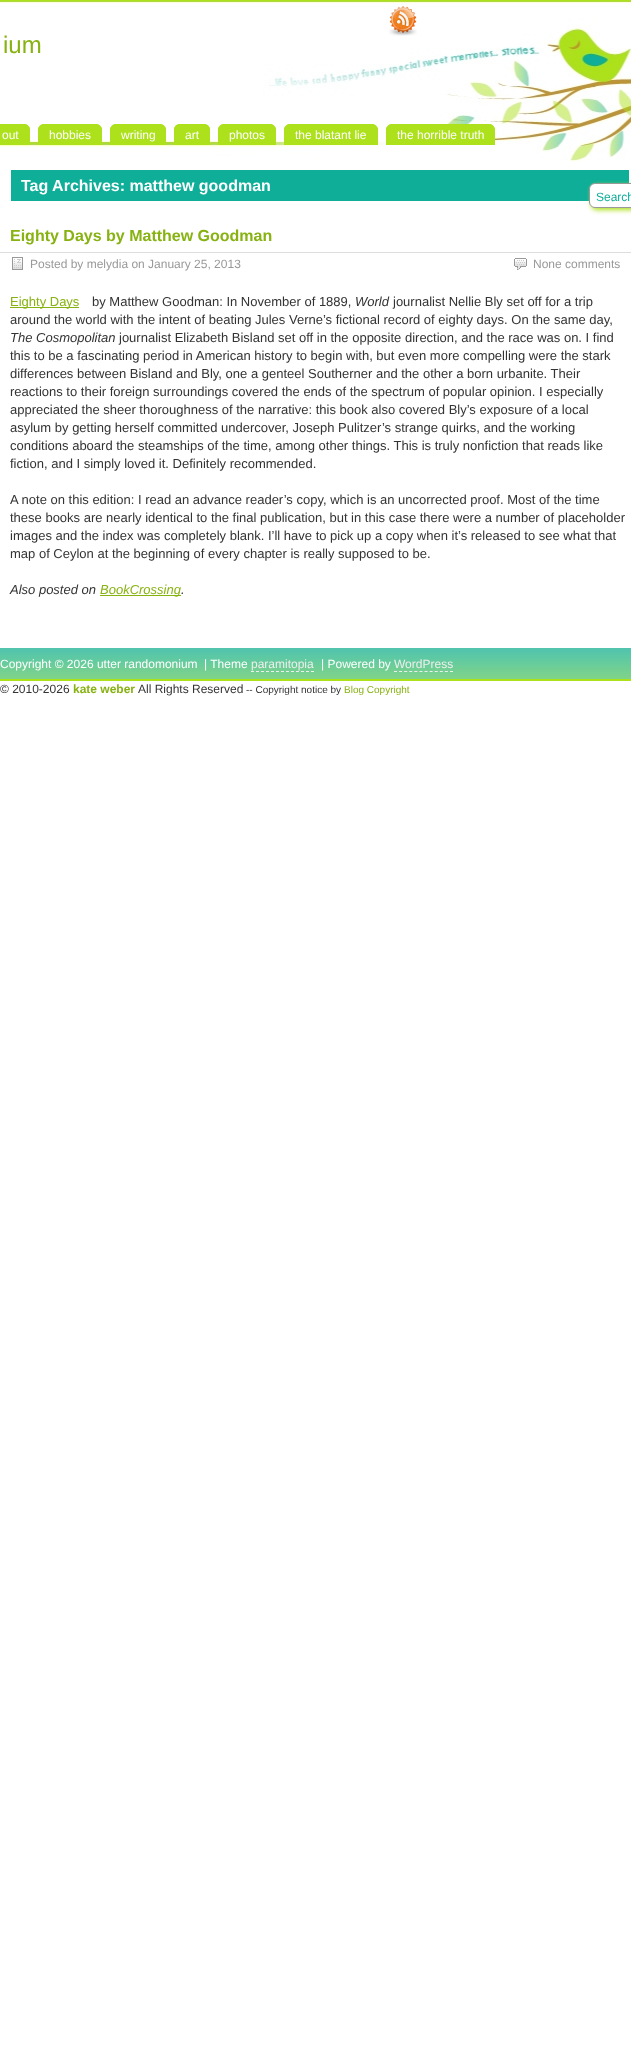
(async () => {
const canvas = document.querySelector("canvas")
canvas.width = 631
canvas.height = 2051
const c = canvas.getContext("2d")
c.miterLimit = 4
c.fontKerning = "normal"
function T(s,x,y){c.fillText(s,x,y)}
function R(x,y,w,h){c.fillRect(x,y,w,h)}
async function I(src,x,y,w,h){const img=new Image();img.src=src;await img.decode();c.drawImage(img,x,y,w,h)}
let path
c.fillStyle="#fff"
R(0,0,631,2051)
await I("1.png",0,0,631,162)
await I("2.png",389,6,28,30)
c.font="24px Liberation Sans"
c.fillStyle="#87b212"
T("ium",3,53)
c.fillStyle="#ace11b"
path = new Path2D("M0 124h24c3.5 0 6 2.5 6 6v15h-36v-15c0-3.5 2.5-6 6-6z")
c.fill(path)
path = new Path2D("M-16 124h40c3 0 6 3 6 6v15h-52v-15c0-3 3-6 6-6zm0 1h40c3 0 5 2 5 5v15h-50v-15c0-3 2-5 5-5z")
c.fill(path,"evenodd")
c.font="12px Liberation Sans"
c.fillStyle="#fff"
T("out",2,139)
c.fillStyle="#ace11b"
c.beginPath()
c.roundRect(38,124,64,21,[6,6,0,0])
c.fill()
path = new Path2D("M44 124h52c3 0 6 3 6 6v15h-64v-15c0-3 3-6 6-6zm0 1h52c3 0 5 2 5 5v15h-62v-15c0-3 2-5 5-5z")
c.fill(path,"evenodd")
c.fillStyle="#fff"
T("hobbies",49,139)
c.fillStyle="#ace11b"
c.beginPath()
c.roundRect(110,124,56,21,[6,6,0,0])
c.fill()
path = new Path2D("M116 124h44c3 0 6 3 6 6v15h-56v-15c0-3 3-6 6-6zm0 1h44c3 0 5 2 5 5v15h-54v-15c0-3 2-5 5-5z")
c.fill(path,"evenodd")
c.fillStyle="#fff"
T("writing",121,139)
c.fillStyle="#ace11b"
c.beginPath()
c.roundRect(174,124,36,21,[6,6,0,0])
c.fill()
path = new Path2D("M180 124h24c3.5 0 6 2.5 6 6v15h-36v-15c0-3.5 2.5-6 6-6zm0 1h24c3 0 5 2 5 5v15h-34v-15c0-3 2-5 5-5z")
c.fill(path,"evenodd")
c.fillStyle="#fff"
T("art",185,139)
c.fillStyle="#ace11b"
c.beginPath()
c.roundRect(218,124,58,21,[6,6,0,0])
c.fill()
path = new Path2D("M224 124h46c3 0 6 3 6 6v15h-58v-15c0-3 3-6 6-6zm0 1h46c3 0 5 2 5 5v15h-56v-15c0-3 2-5 5-5z")
c.fill(path,"evenodd")
c.fillStyle="#fff"
T("photos",229,139)
c.fillStyle="#ace11b"
c.beginPath()
c.roundRect(284,124,94,21,[6,6,0,0])
c.fill()
path = new Path2D("M290 124h82c3 0 6 3 6 6v15h-94v-15c0-3 3-6 6-6zm0 1h82c3 0 5 2 5 5v15h-92v-15c0-3 2-5 5-5z")
c.fill(path,"evenodd")
c.fillStyle="#fff"
T("the blatant lie",295,139)
c.fillStyle="#ace11b"
c.beginPath()
c.roundRect(386,124,109,21,[6,6,0,0])
c.fill()
path = new Path2D("M392 124h97c3 0 6 3 6 6v15h-109v-15c0-3 3-6 6-6zm0 1h97c3 0 5 2 5 5v15h-107v-15c0-3 2-5 5-5z")
c.fill(path,"evenodd")
c.fillStyle="#fff"
T("the horrible truth",397,139)
c.fillStyle="#0eae99"
R(11,170,618,31)
c.fillStyle="#ace11b"
c.filter="blur(2.5px)"
c.beginPath()
c.roundRect(591,185,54,25,6)
c.fill()
c.filter="none"
c.fillStyle="#fff"
c.beginPath()
c.roundRect(589.5,183.5,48,24,5.5)
c.fill()
c.strokeStyle="#999"
c.stroke()
c.fillStyle="#0eae99"
T("Search",596,201)
c.font="bold 16px Liberation Sans"
c.fillStyle="#fff"
T("Tag Archives: matthew goodman",21,191)
c.fillStyle="#87b212"
T("Eighty Days by Matthew Goodman",10,241)
c.fillStyle="#ddd"
R(0,252,631,1)
await I("3.png",12,257,11,13)
c.font="12px Liberation Sans"
c.fillStyle="#999"
T("Posted by melydia on January 25, 2013",30,268)
await I("4.png",514,258,13,12)
T("None comments",533,268)
c.fillStyle="#87b212"
R(10,307,69,1)
c.font="13px Liberation Sans"
T("Eighty Days",10,306)
c.fillStyle="#333"
T("by Matthew Goodman: In November of 1889,",92,306)
c.font="italic 13px Liberation Sans"
T("World",355,306)
c.font="13px Liberation Sans"
T("journalist Nellie Bly set off for a trip",393,306)
T("around the world with the intent of beating Jules Verne’s fictional record of eighty days. On the same day,",10,324)
c.font="italic 13px Liberation Sans"
T("The Cosmopolitan",10,342)
c.font="13px Liberation Sans"
T("journalist Elizabeth Bisland set off in the opposite direction, and the race was on. I find",119,342)
T("this to be a fascinating period in American history to begin with, but even more compelling were the stark",10,360)
T("differences between Bisland and Bly, one a genteel Southerner and the other a born urbanite. Their",10,378)
T("reactions to their foreign surroundings covered the ends of the spectrum of popular opinion. I especially",10,396)
T("appreciated the sheer thoroughness of the narrative: this book also covered Bly’s exposure of a local",10,414)
T("asylum by getting herself committed undercover, Joseph Pulitzer’s strange quirks, and the working",10,432)
T("conditions aboard the steamships of the time, among other things. This is truly nonfiction that reads like",10,450)
T("fiction, and I simply loved it. Definitely recommended.",10,468)
T("A note on this edition: I read an advance reader’s copy, which is an uncorrected proof. Most of the time",10,504)
T("these books are nearly identical to the final publication, but in this case there were a number of placeholder",10,522)
T("images and the index was completely blank. I’ll have to pick up a copy when it’s released to see what that",10,540)
T("map of Ceylon at the beginning of every chapter is really supposed to be.",10,558)
c.font="italic 13px Liberation Sans"
T("Also posted on",10,594)
c.fillStyle="#87b212"
R(100,595,81,1)
T("BookCrossing",100,594)
c.fillStyle="#333"
T(".",181,594)
await I("5.png",0,648,631,33)
c.font="12px Liberation Sans"
c.fillStyle="#fff"
T("Copyright © 2026 utter randomonium",0,668)
T("| Theme",204,668)
c.fillStyle="#eee"
T("paramitopia",251,668)
path = new Path2D("M251 671.5h63")
c.strokeStyle="#eee"
c.setLineDash([3,2])
c.stroke(path)
c.fillStyle="#fff"
T("| Powered by",321,668)
c.fillStyle="#eee"
T("WordPress",394,668)
path = new Path2D("M394 671.5h59")
c.setLineDash([3,2.09])
c.stroke(path)
c.fillStyle="#333"
T("© 2010-2026",0,693)
c.font="bold 12px Liberation Sans"
c.fillStyle="#87b212"
T("kate weber",73,693)
c.font="12px Liberation Sans"
c.fillStyle="#333"
T("All Rights Reserved",138,693)
c.font="10px Liberation Sans"
T("-- Copyright notice by",246,693)
c.fillStyle="#87b212"
T("Blog Copyright",344,693)
})()
